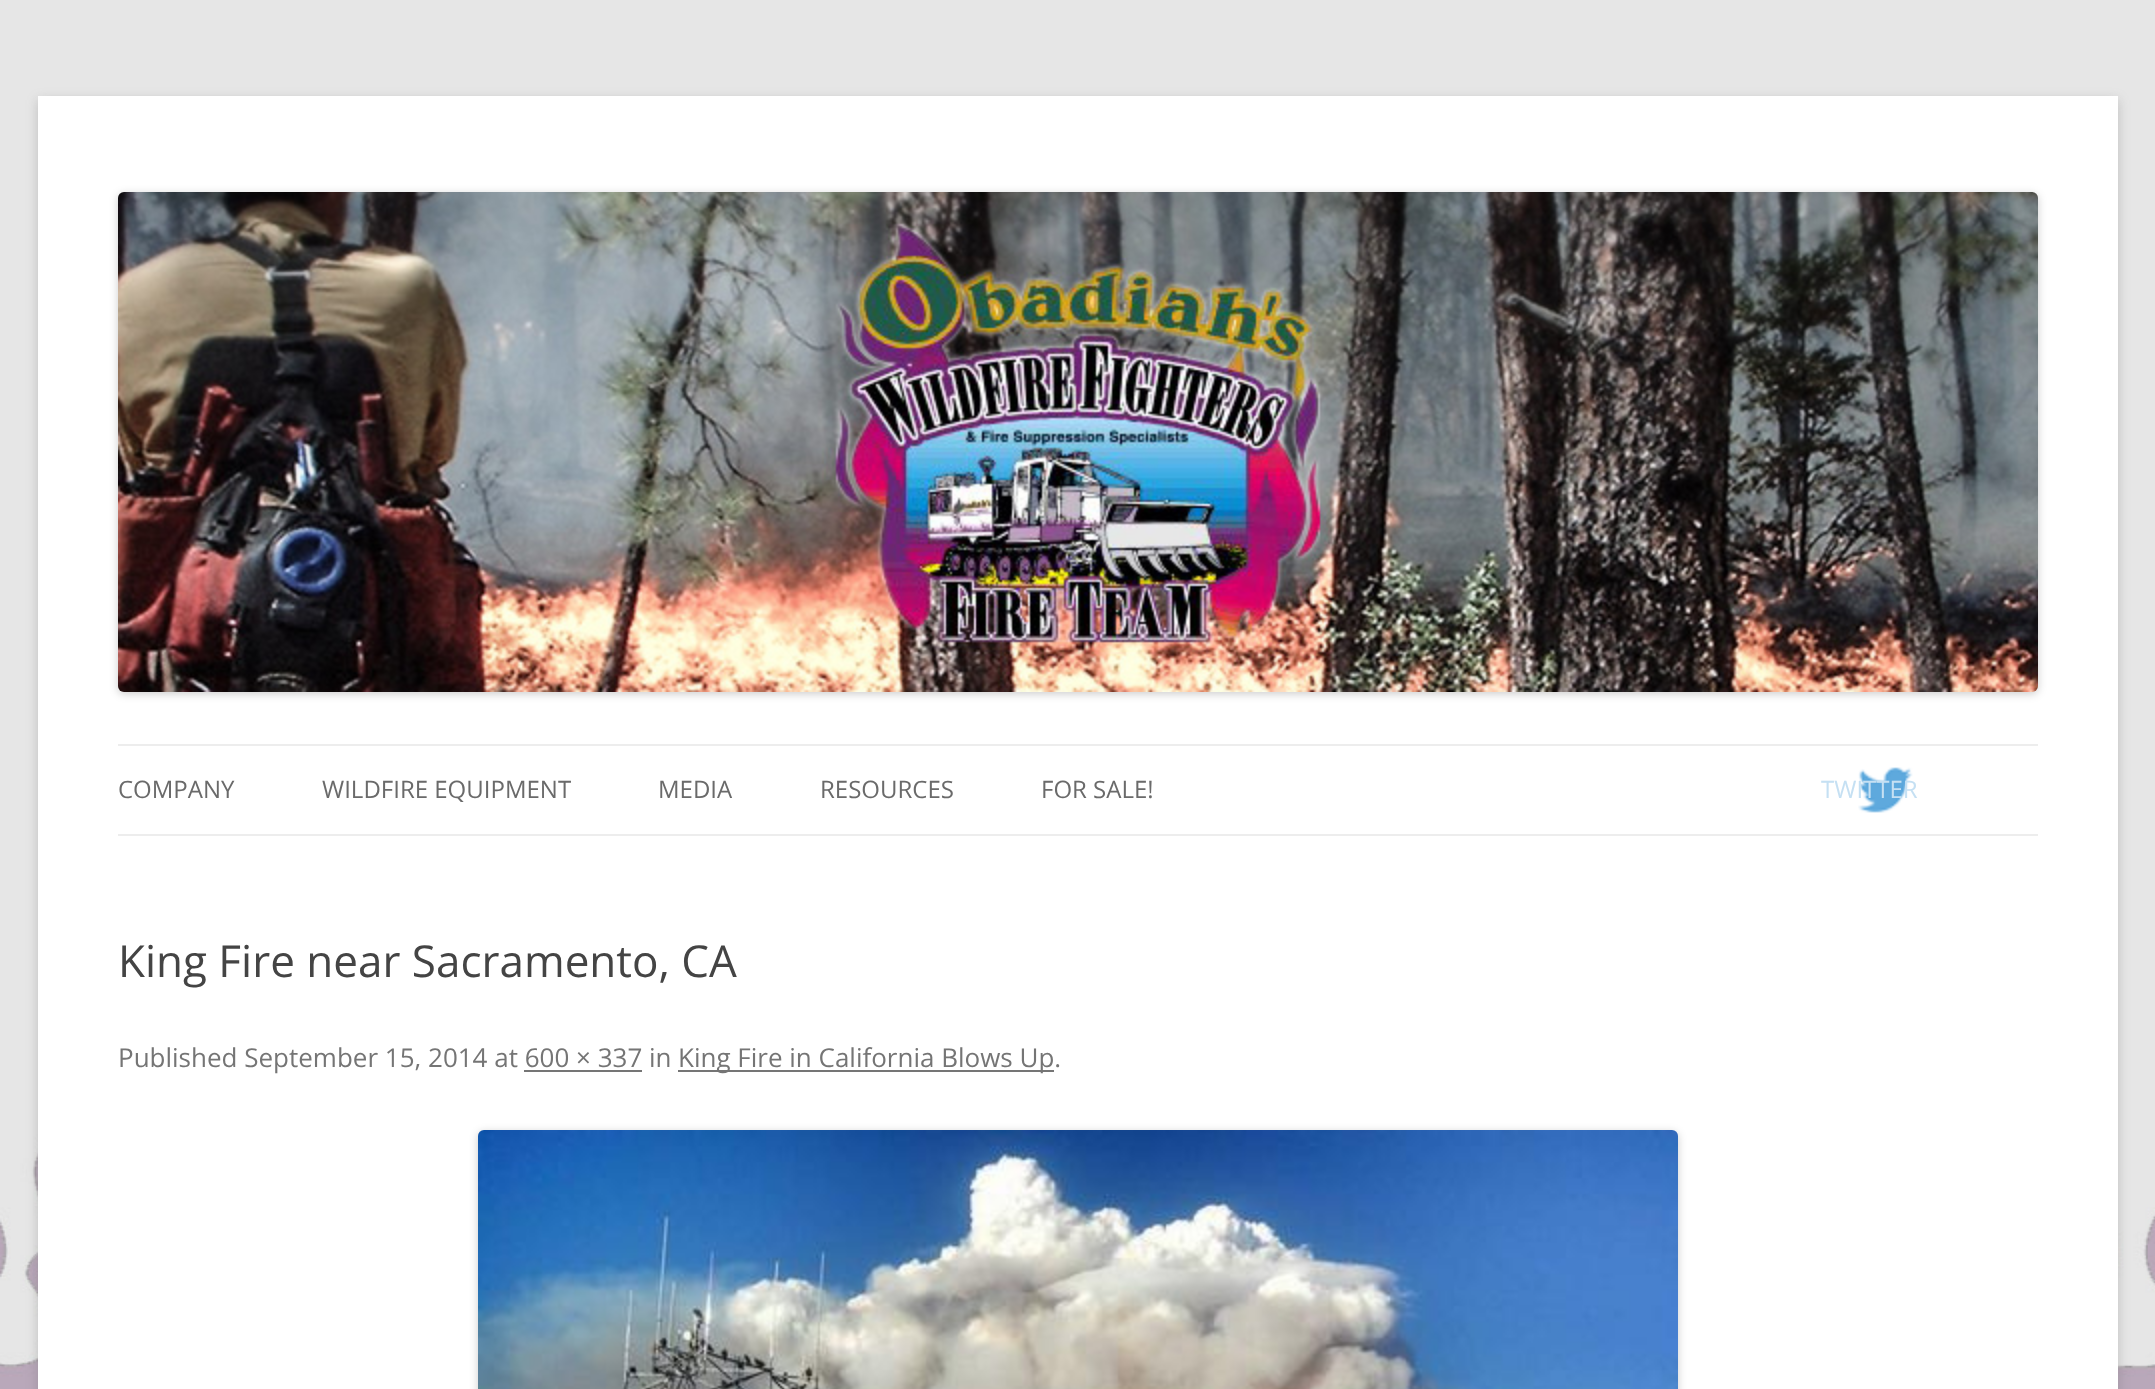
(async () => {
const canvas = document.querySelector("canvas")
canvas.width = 2155
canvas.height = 1389
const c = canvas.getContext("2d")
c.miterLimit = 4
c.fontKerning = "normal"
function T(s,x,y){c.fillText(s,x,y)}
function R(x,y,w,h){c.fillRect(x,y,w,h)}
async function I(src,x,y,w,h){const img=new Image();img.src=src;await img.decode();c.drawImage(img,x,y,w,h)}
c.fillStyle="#e6e6e6"
R(0,0,2155,1389)
await I("1.png",0,290,2155,1099)
c.fillStyle="#6464644d"
c.filter="blur(6px)"
c.beginPath()
c.rect(38,100,2080,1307)
c.fill()
c.filter="none"
c.fillStyle="#fff"
R(38,96,2080,1293)
c.fillStyle="#00000033"
c.filter="blur(4px)"
c.beginPath()
c.roundRect(118,194,1920,500,6)
c.fill()
c.filter="none"
await I("2.png",118,192,1920,500)
c.fillStyle="#ededed"
R(118,744,1920,2)
R(118,834,1920,2)
c.font="24px Open Sans"
c.fillStyle="#6a6a6a"
T("COMPANY",118,798)
T("WILDFIRE EQUIPMENT",322,798)
T("MEDIA",658,798)
T("RESOURCES",820,798)
T("FOR SALE!",1041,798)
await I("3.png",1858,767,55,46)
c.fillStyle="#c5e0f3"
T("TWITTER",1821,798)
c.font="44px Open Sans"
c.fillStyle="#444"
T("King Fire near Sacramento, CA",118,977)
c.font="26px Open Sans"
c.fillStyle="#757575"
T("Published September 15, 2014 at 600 × 337 in",118,1067)
R(678,1070,376,2)
T("King Fire in California Blows Up.",678,1067)
R(524,1070,118,2)
c.fillStyle="#00000033"
c.filter="blur(4px)"
c.beginPath()
c.roundRect(478,1132,1200,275,6)
c.fill()
c.filter="none"
await I("4.png",478,1130,1200,259)
})()
